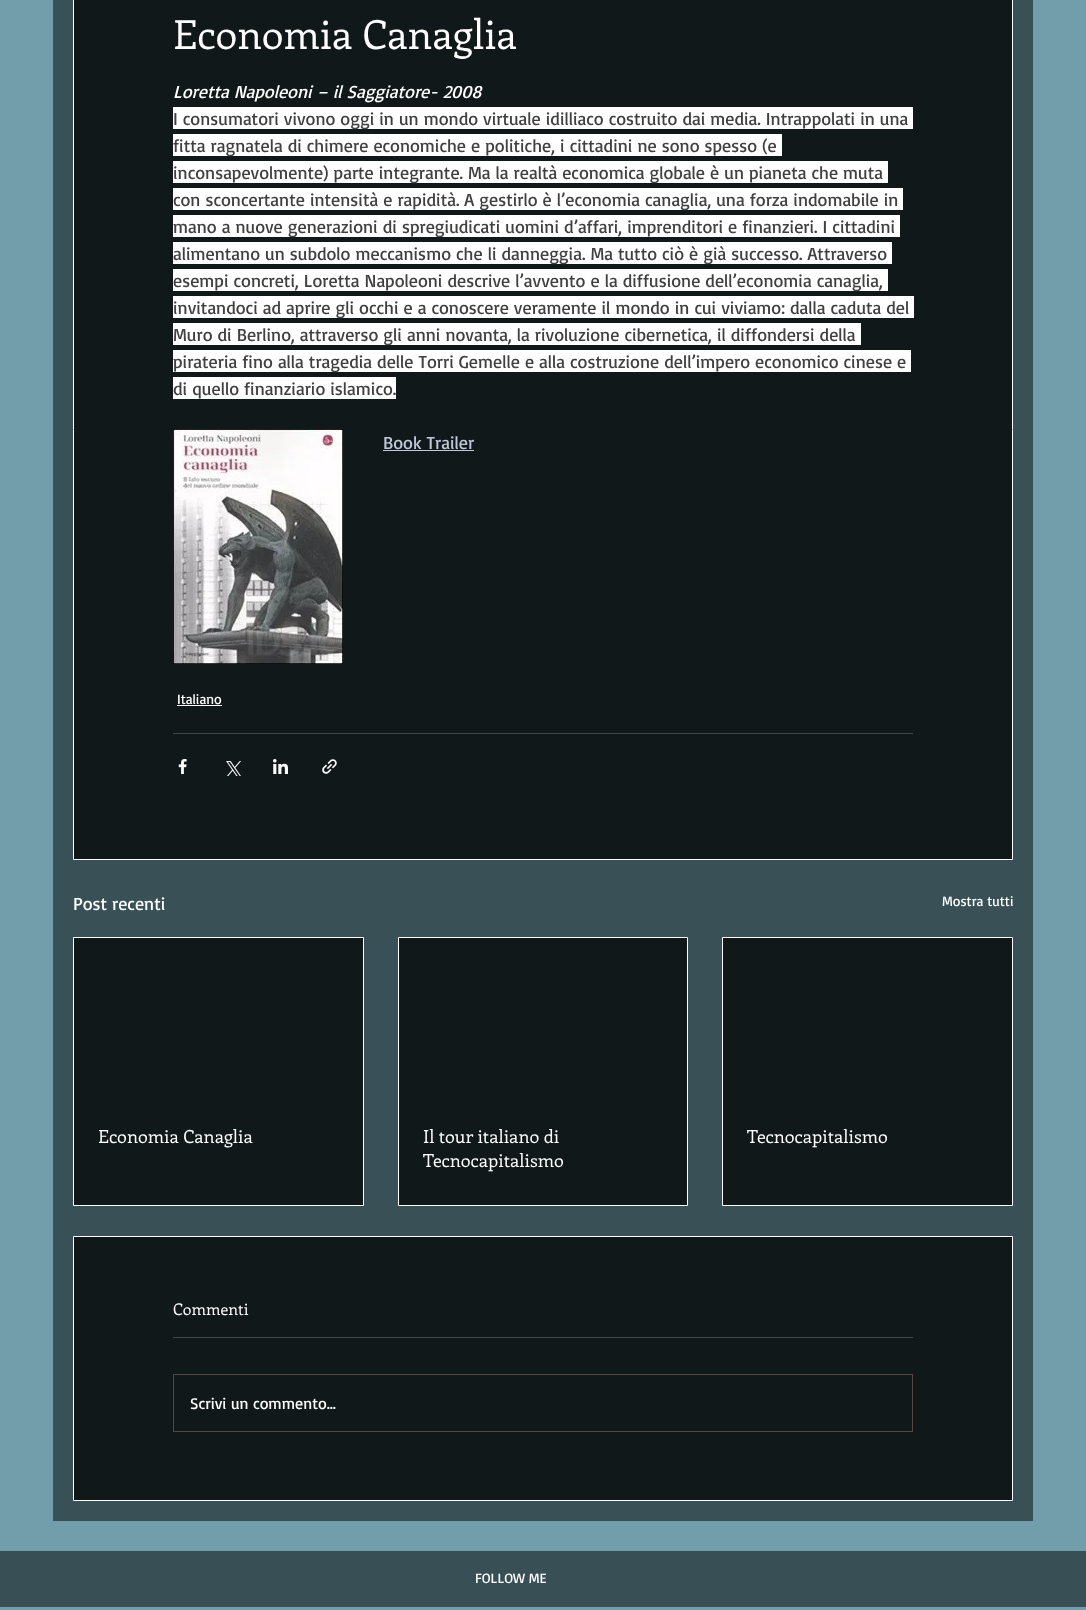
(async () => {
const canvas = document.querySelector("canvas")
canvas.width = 1086
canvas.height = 1610
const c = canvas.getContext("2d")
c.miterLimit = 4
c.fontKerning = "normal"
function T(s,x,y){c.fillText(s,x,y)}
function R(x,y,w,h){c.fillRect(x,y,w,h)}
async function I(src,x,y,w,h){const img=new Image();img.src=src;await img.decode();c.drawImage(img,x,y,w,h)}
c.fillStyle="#729eab"
R(0,0,1086,1610)
c.fillStyle="#385056"
R(53,0,980,1521)
c.fillStyle="#11181a"
c.beginPath()
c.rect(73.5,-.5,939,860)
c.fill()
c.strokeStyle="#fff"
c.stroke()
c.font="40px Enriqueta"
c.fillStyle="#fff"
T("Economia Canaglia",173,49)
c.font="italic 18px Basic"
T("Loretta Napoleoni – il Saggiatore- 2008",173,98)
R(173,107,740,22)
c.font="18px Basic"
c.fillStyle="#404040"
T("I consumatori vivono oggi in un mondo virtuale idilliaco costruito dai media. Intrappolati in una",173,125)
c.fillStyle="#fff"
R(173,134,609,22)
c.fillStyle="#404040"
T("fitta ragnatela di chimere economiche e politiche, i cittadini ne sono spesso (e",173,152)
c.fillStyle="#fff"
R(173,161,715,22)
c.fillStyle="#404040"
T("inconsapevolmente) parte integrante. Ma la realtà economica globale è un pianeta che muta",173,179)
c.fillStyle="#fff"
R(173,188,730,22)
c.fillStyle="#404040"
T("con sconcertante intensità e rapidità. A gestirlo è l’economia canaglia, una forza indomabile in",173,206)
c.fillStyle="#fff"
R(173,215,727,22)
c.fillStyle="#404040"
T("mano a nuove generazioni di spregiudicati uomini d’affari, imprenditori e finanzieri. I cittadini",173,233)
c.fillStyle="#fff"
R(173,242,719,22)
c.fillStyle="#404040"
T("alimentano un subdolo meccanismo che li danneggia. Ma tutto ciò è già successo. Attraverso",173,260)
c.fillStyle="#fff"
R(173,269,715,22)
c.fillStyle="#404040"
T("esempi concreti, Loretta Napoleoni descrive l’avvento e la diffusione dell’economia canaglia,",173,287)
c.fillStyle="#fff"
R(173,296,741,22)
c.fillStyle="#404040"
T("invitandoci ad aprire gli occhi e a conoscere veramente il mondo in cui viviamo: dalla caduta del",173,314)
c.fillStyle="#fff"
R(173,323,688,22)
c.fillStyle="#404040"
T("Muro di Berlino, attraverso gli anni novanta, la rivoluzione cibernetica, il diffondersi della",173,341)
c.fillStyle="#fff"
R(173,350,738,22)
c.fillStyle="#404040"
T("pirateria fino alla tragedia delle Torri Gemelle e alla costruzione dell’impero economico cinese e",173,368)
c.fillStyle="#fff"
R(173,377,223,22)
c.fillStyle="#404040"
T("di quello finanziario islamico.",173,395)
await I("1.png",173,429,170,235)
c.fillStyle="#c0c9dc"
T("Book Trailer",383,449)
R(383,450,91,1)
c.font="14px Basic"
c.fillStyle="#fff"
T("Italiano",177,704)
R(177,705,45,1)
c.fillStyle="#414648"
R(173,733,740,1)
await I("2.png",178,759,9,15)
await I("3.png",226,761,15,15)
await I("4.png",273,759,15,15)
await I("5.png",322,759,15,15)
c.font="18px Basic"
c.fillStyle="#fff"
T("Post recenti",73,910)
c.font="14px Basic"
T("Mostra tutti",942,906)
c.fillStyle="#11181a"
c.beginPath()
c.rect(73.5,937.5,290,268)
c.fill()
c.stroke()
c.font="18px Enriqueta"
c.fillStyle="#fff"
T("Economia Canaglia",98,1143)
c.fillStyle="#11181a"
c.beginPath()
c.rect(398.5,937.5,289,268)
c.fill()
c.stroke()
c.fillStyle="#fff"
T("Il tour italiano di",423,1143)
c.save()
c.beginPath()
c.rect(423,1124,240,48)
c.clip()
T("Tecnocapitalismo",423,1167)
c.restore()
c.fillStyle="#11181a"
c.beginPath()
c.rect(722.5,937.5,290,268)
c.fill()
c.stroke()
c.fillStyle="#fff"
T("Tecnocapitalismo",747,1143)
c.fillStyle="#11181a"
c.beginPath()
c.rect(73.5,1236.5,939,264)
c.fill()
c.stroke()
c.font="16px Enriqueta"
c.fillStyle="#fff"
T("Commenti",173,1315)
c.fillStyle="#414648"
R(173,1337,740,1)
c.strokeStyle="#584446"
c.strokeRect(173.5,1374.5,739,57)
c.font="16px Basic"
c.fillStyle="#fff"
T("Scrivi un commento...",190,1409)
c.fillStyle="#394f56"
R(0,1551,1086,56)
c.font="14px Basic"
c.fillStyle="#fff"
T("FOLLOW ME",475,1583)
})()
